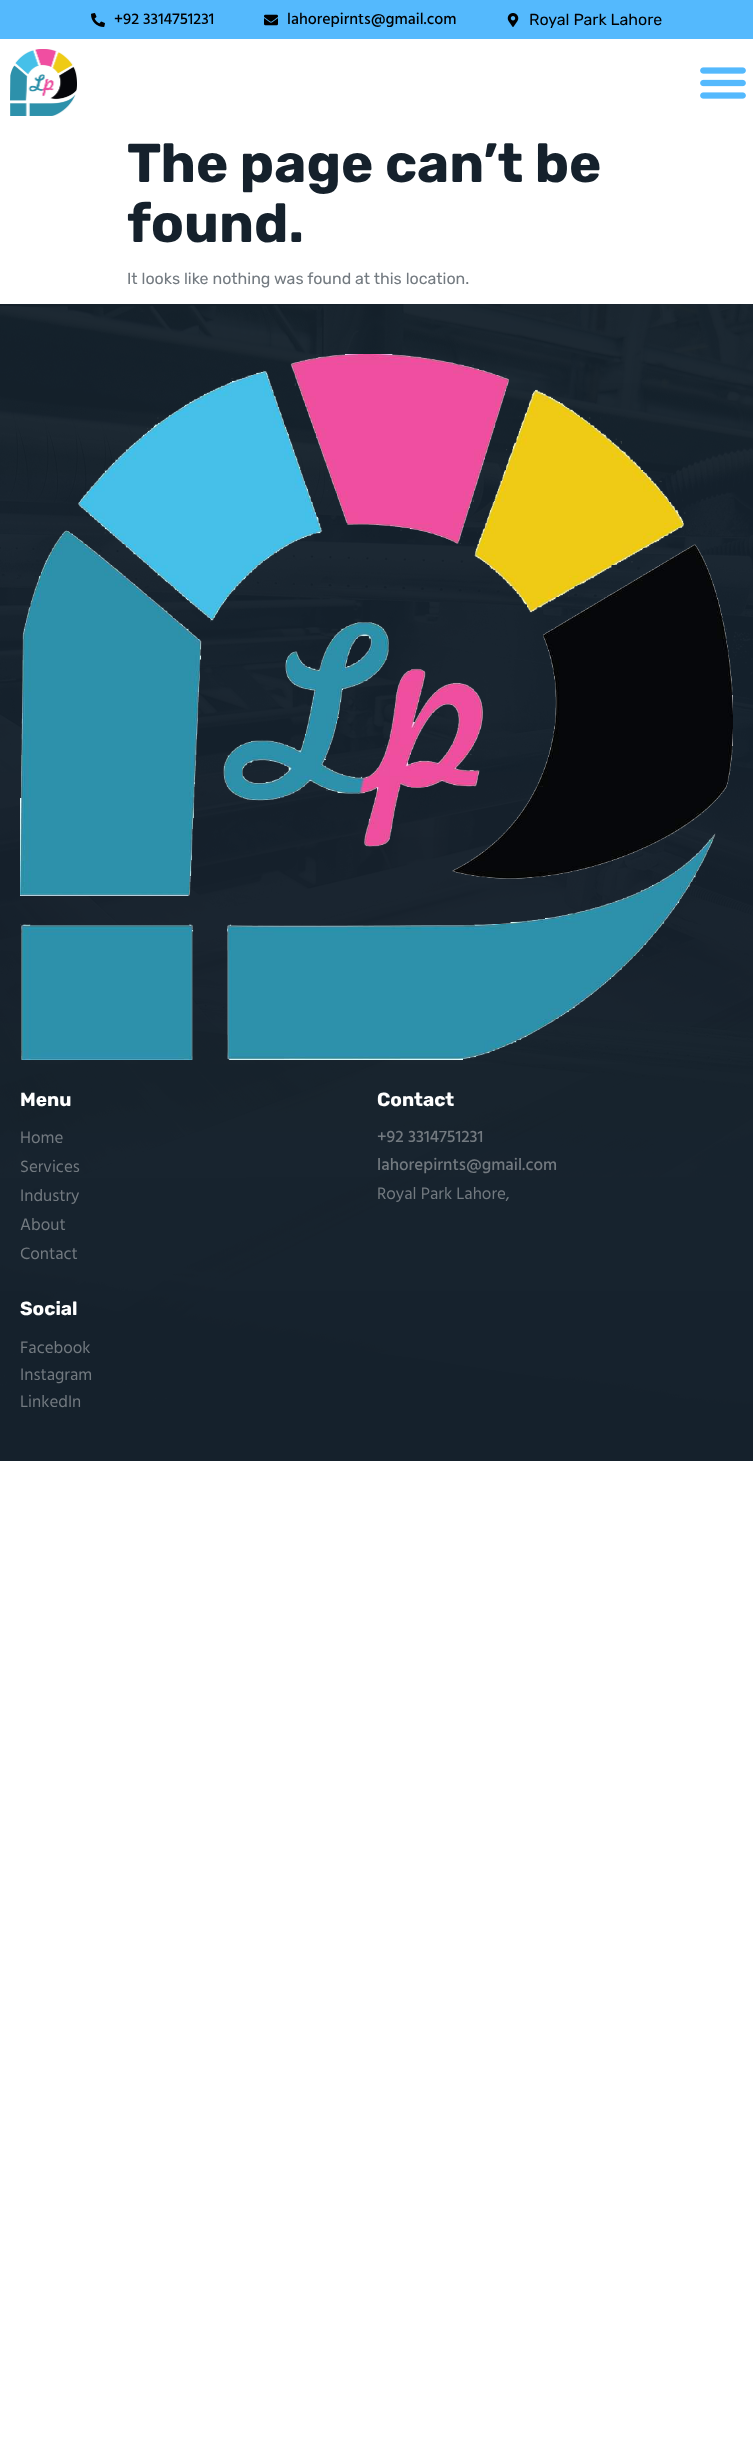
(async () => {
const canvas = document.querySelector("canvas")
canvas.width = 753
canvas.height = 2447
const c = canvas.getContext("2d")
c.miterLimit = 4
c.fontKerning = "normal"
function T(s,x,y){c.fillText(s,x,y)}
function R(x,y,w,h){c.fillRect(x,y,w,h)}
async function I(src,x,y,w,h){const img=new Image();img.src=src;await img.decode();c.drawImage(img,x,y,w,h)}
c.fillStyle="#fff"
R(0,0,753,2447)
c.fillStyle="#54b9fd"
R(0,0,753,39)
await I("1.png",91,13,14,14)
c.font="500 16px Hind"
c.fillStyle="#000"
T("+92 3314751231",114,24)
await I("2.png",264,14,14,12)
T("lahorepirnts@gmail.com",287,24)
await I("3.png",507,13,12,14)
c.font="16px Rubik"
T("Royal Park Lahore",529,25)
await I("4.png",10,49,67,67)
await I("5.png",700,67,46,32)
c.font="bold 54.5px Rubik"
c.fillStyle="#15212c"
T("The page can’t be",127,182)
T("found.",127,242)
c.font="16px Rubik"
c.fillStyle="#737a80"
T("It looks like nothing was found at this location.",127,284)
await I("6.png",0,304,753,1157)
await I("7.png",20,354,713,706)
c.font="bold 19px Rubik"
c.fillStyle="#fff"
T("Menu",20,1106)
c.font="17px Hind"
c.fillStyle="#737a80"
T("Home",20,1143)
T("Services",20,1172)
T("Industry",20,1201)
T("About",20,1230)
T("Contact",20,1259)
c.font="bold 19px Rubik"
c.fillStyle="#fff"
T("Contact",377,1106)
c.font="500 17px Hind"
c.fillStyle="#737a80"
T("+92 3314751231",377,1142)
T("lahorepirnts@gmail.com",377,1170)
c.font="17px Hind"
T("Royal Park Lahore,",377,1199)
c.font="bold 19px Rubik"
c.fillStyle="#fff"
T("Social",20,1315)
c.font="17px Hind"
c.fillStyle="#737a80"
T("Facebook",20,1353)
T("Instagram",20,1380)
T("LinkedIn",20,1407)
})()
